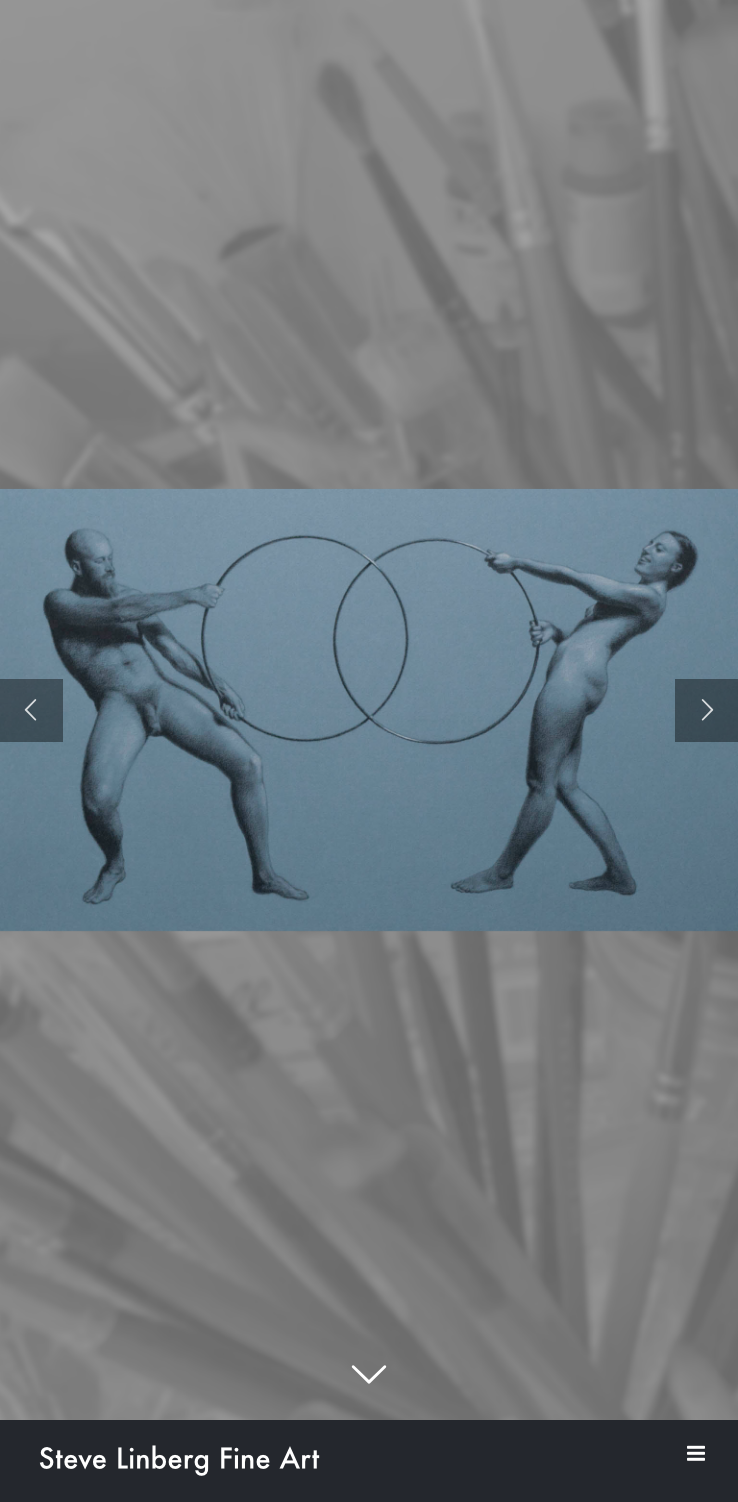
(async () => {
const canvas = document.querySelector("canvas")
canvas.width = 738
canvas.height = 1502
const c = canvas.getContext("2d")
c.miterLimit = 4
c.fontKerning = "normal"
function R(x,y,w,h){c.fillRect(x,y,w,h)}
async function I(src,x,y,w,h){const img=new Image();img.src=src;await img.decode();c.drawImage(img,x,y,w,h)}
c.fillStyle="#fff"
R(0,0,738,1502)
await I("1.png",0,0,738,1420)
await I("2.png",0,488,738,444)
await I("3.png",351,1365,36,19)
c.fillStyle="#00000066"
R(0,679,63,63)
await I("4.png",24,699,13,22)
R(675,679,63,63)
await I("5.png",701,699,13,22)
c.fillStyle="#24272d"
R(0,1420,738,82)
await I("6.png",39,1445,281,31)
await I("7.png",687,1445,18,16)
})()
